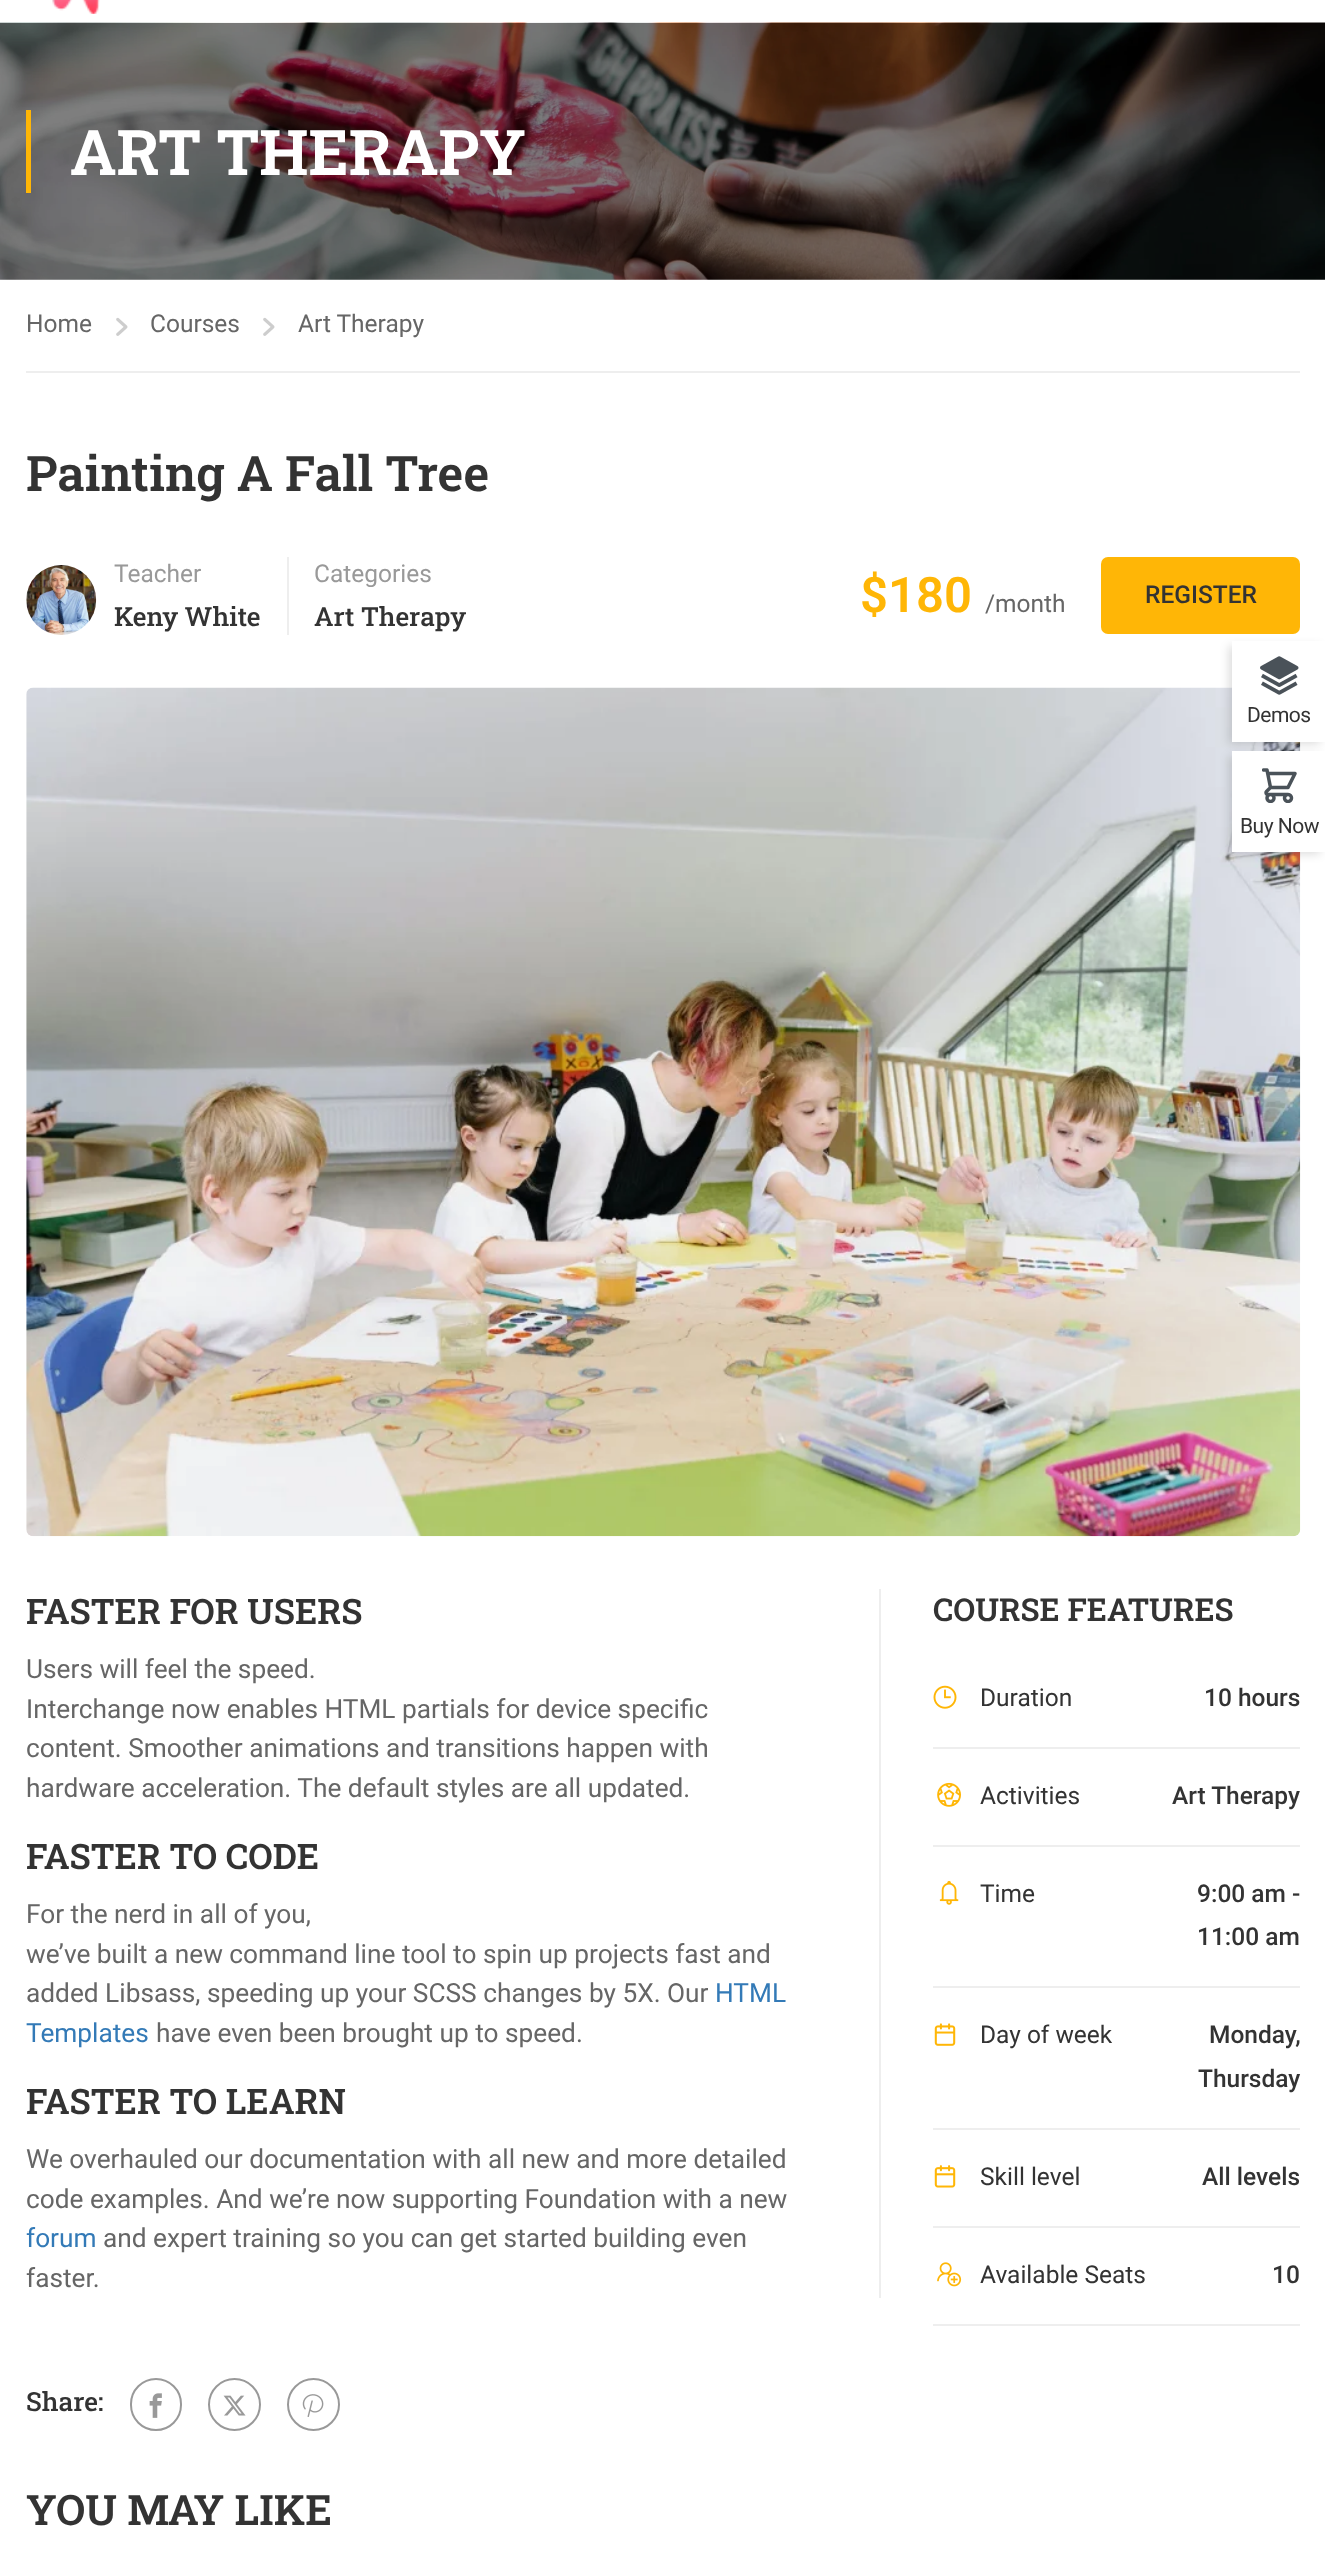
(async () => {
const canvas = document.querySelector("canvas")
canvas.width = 1325
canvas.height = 2559
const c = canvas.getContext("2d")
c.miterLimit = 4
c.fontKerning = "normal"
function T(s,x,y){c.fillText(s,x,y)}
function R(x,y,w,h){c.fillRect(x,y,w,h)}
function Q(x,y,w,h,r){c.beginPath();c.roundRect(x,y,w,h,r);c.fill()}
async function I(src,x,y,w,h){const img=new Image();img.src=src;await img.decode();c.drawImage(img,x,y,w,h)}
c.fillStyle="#fff"
R(0,0,1325,2559)
await I("1.png",52,0,48,14)
await I("2.png",0,22,1325,258)
c.fillStyle="#ffb606"
R(26,110,5,83)
c.font="bold 63px Roboto Slab"
c.fillStyle="#fff"
T("ART THERAPY",70,175)
c.fillStyle="#eee"
R(26,371,1274,2)
c.font="24.5px Roboto"
c.fillStyle="#666"
T("Home",26,332)
await I("3.png",116,317,12,19)
T("Courses",150,332)
await I("3.png",263,317,12,19)
T("Art Therapy",298,332)
c.font="600 49px Roboto Slab"
c.fillStyle="#333"
T("Painting A Fall Tree",26,491)
c.fillStyle="#eee"
R(287,557,2,78)
await I("4.png",26,565,71,70)
c.font="24.5px Roboto"
c.fillStyle="#999"
T("Teacher",114,582)
c.font="500 26.25px Roboto Slab"
c.fillStyle="#333"
T("Keny White",114,626)
c.font="24.5px Roboto"
c.fillStyle="#999"
T("Categories",314,582)
c.font="500 26.25px Roboto Slab"
c.fillStyle="#333"
T("Art Therapy",314,626)
c.font="600 49px Roboto"
c.fillStyle="#ffb606"
T("$180",860,612)
c.font="24.5px Roboto"
c.fillStyle="#666"
T("/month",985,612)
c.fillStyle="#ffb606"
Q(1101,557,199,77,7)
c.font="500 24.5px Roboto"
c.fillStyle="#333"
T("REGISTER",1145,603)
await I("5.png",26,687,1275,850)
c.fillStyle="#eee"
R(879,1589,2,709)
c.font="600 35px Roboto Slab"
c.fillStyle="#333"
T("FASTER FOR USERS",26,1624)
c.font="26.25px Roboto"
c.fillStyle="#666"
T("Users will feel the speed.",26,1678)
T("Interchange now enables HTML partials for device specific",26,1718)
T("content. Smoother animations and transitions happen with",26,1757)
T("hardware acceleration. The default styles are all updated.",26,1797)
c.font="600 35px Roboto Slab"
c.fillStyle="#333"
T("FASTER TO CODE",26,1869)
c.font="26.25px Roboto"
c.fillStyle="#666"
T("For the nerd in all of you,",26,1923)
T("we’ve built a new command line tool to spin up projects fast and",26,1963)
T("added Libsass, speeding up your SCSS changes by 5X. Our",26,2002)
c.fillStyle="#337ab7"
T("HTML",715,2002)
T("Templates",26,2042)
c.fillStyle="#666"
T("have even been brought up to speed.",156,2042)
c.font="600 35px Roboto Slab"
c.fillStyle="#333"
T("FASTER TO LEARN",26,2114)
c.font="26.25px Roboto"
c.fillStyle="#666"
T("We overhauled our documentation with all new and more detailed",26,2168)
T("code examples. And we’re now supporting Foundation with a new",26,2208)
c.fillStyle="#337ab7"
T("forum",26,2247)
c.fillStyle="#666"
T("and expert training so you can get started building even",103,2247)
T("faster.",26,2287)
c.font="600 31.5px Roboto Slab"
c.fillStyle="#333"
T("COURSE FEATURES",933,1621)
c.fillStyle="#eee"
R(933,1747,367,2)
await I("6.png",933,1685,24,24)
c.font="24.5px Roboto"
c.fillStyle="#333"
T("Duration",980,1706)
c.font="500 24.5px Roboto"
T("10 hours",1204,1706)
c.fillStyle="#eee"
R(933,1845,367,2)
await I("7.png",937,1782,24,25)
c.font="24.5px Roboto"
c.fillStyle="#333"
T("Activities",980,1804)
c.font="500 24.5px Roboto"
T("Art Therapy",1172,1804)
c.fillStyle="#eee"
R(933,1986,367,2)
await I("8.png",939,1880,20,25)
c.font="24.5px Roboto"
c.fillStyle="#333"
T("Time",980,1902)
c.font="500 24.5px Roboto"
T("9:00 am -",1197,1902)
T("11:00 am",1197,1945)
c.fillStyle="#eee"
R(933,2128,367,2)
await I("9.png",934,2023,22,23)
c.font="24.5px Roboto"
c.fillStyle="#333"
T("Day of week",980,2043)
c.font="500 24.5px Roboto"
T("Monday,",1209,2043)
T("Thursday",1198,2087)
c.fillStyle="#eee"
R(933,2226,367,2)
await I("10.png",934,2165,22,23)
c.font="24.5px Roboto"
c.fillStyle="#333"
T("Skill level",980,2185)
c.font="500 24.5px Roboto"
T("All levels",1202,2185)
c.fillStyle="#eee"
R(933,2324,367,2)
await I("11.png",937,2262,25,25)
c.font="24.5px Roboto"
c.fillStyle="#333"
T("Available Seats",980,2283)
c.font="500 24.5px Roboto"
T("10",1272,2283)
c.font="500 26.25px Roboto Slab"
T("Share:",26,2411)
c.beginPath()
c.roundRect(131,2379,50,51,25)
c.strokeStyle="#999"
c.lineWidth=2
c.stroke()
await I("12.png",149,2393,13,25)
c.beginPath()
c.arc(234.5,2404.5,25.5,0,7)
c.stroke()
await I("13.png",223,2395,23,21)
c.beginPath()
c.arc(313.5,2404.5,25.5,0,7)
c.stroke()
await I("14.png",302,2394,22,23)
c.font="600 42px Roboto Slab"
T("YOU MAY LIKE",26,2525)
c.fillStyle="#00000024"
c.filter="blur(5px)"
c.beginPath()
c.rect(1229,646,91,98)
c.fill()
c.filter="none"
c.fillStyle="#fff"
R(1232,641,93,101)
await I("15.png",1260,656,39,39)
c.letterSpacing="-0.5px"
c.font="21px Roboto"
c.fillStyle="#333"
T("Demos",1247,722)
c.fillStyle="#00000024"
c.filter="blur(5px)"
c.beginPath()
c.rect(1229,756,91,98)
c.fill()
c.filter="none"
c.fillStyle="#fff"
R(1232,751,93,101)
await I("16.png",1262,768,35,35)
c.fillStyle="#333"
T("Buy Now",1240,833)
})()
